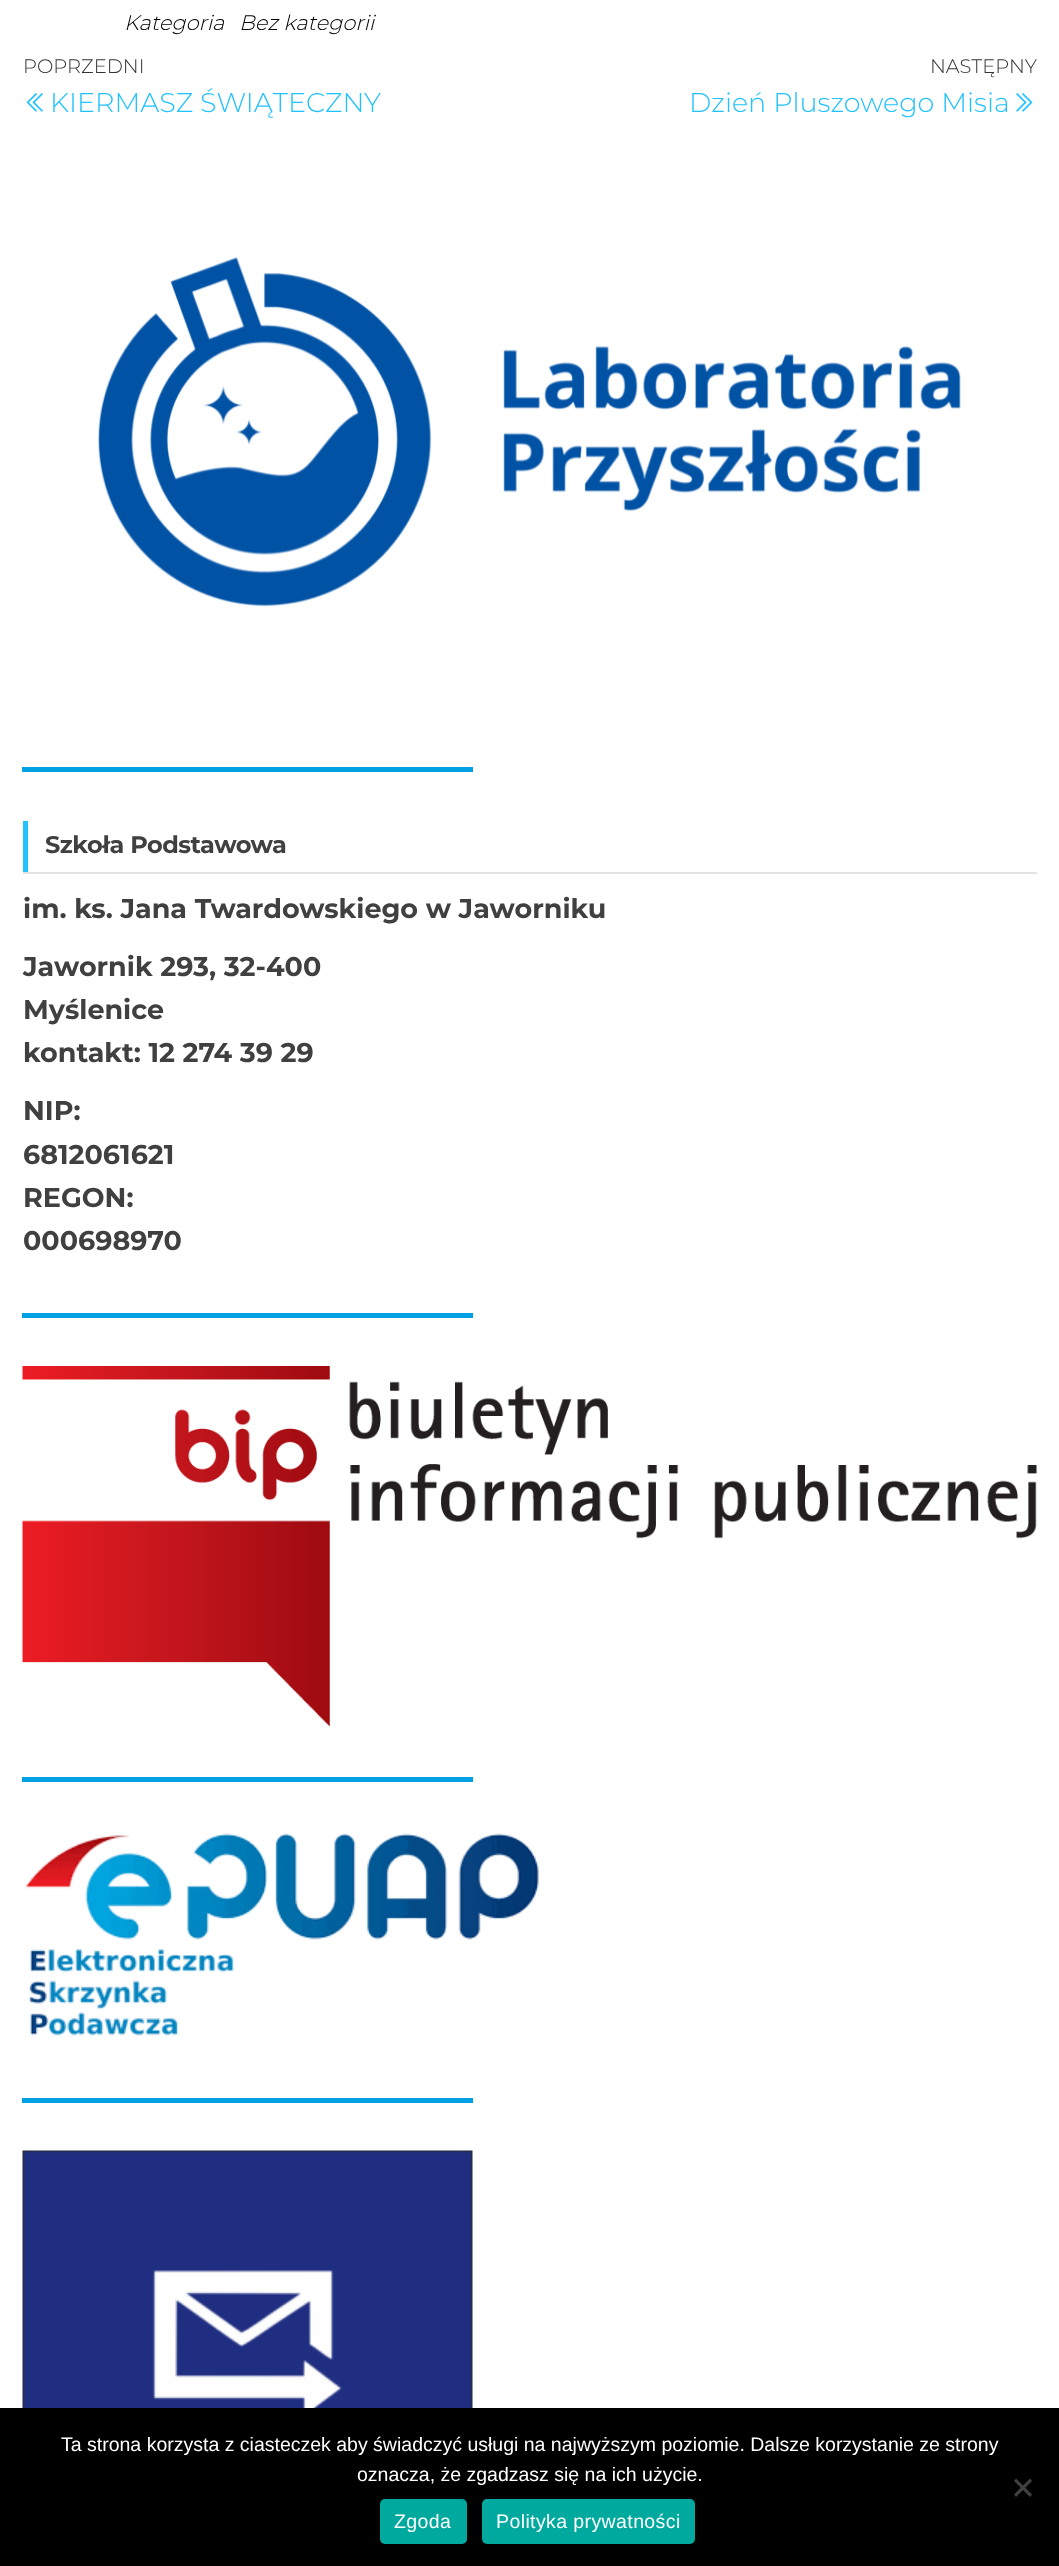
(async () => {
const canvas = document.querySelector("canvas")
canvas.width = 1059
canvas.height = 2566
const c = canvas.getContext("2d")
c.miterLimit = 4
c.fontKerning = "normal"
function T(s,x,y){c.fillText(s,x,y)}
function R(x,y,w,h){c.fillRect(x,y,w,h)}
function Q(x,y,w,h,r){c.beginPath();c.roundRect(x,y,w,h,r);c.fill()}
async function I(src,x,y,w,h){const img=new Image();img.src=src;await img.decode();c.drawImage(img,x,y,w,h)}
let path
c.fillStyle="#fff"
R(0,0,1059,2566)
c.font="italic 300 21px Montserrat"
c.fillStyle="#000"
T("Kategoria",124,30)
T("Bez kategorii",239,30)
c.font="300 19.5px Montserrat"
c.fillStyle="#333"
T("POPRZEDNI",23,73)
await I("1.png",26,93,17,19)
c.font="300 27px Montserrat"
c.fillStyle="#22c2ff"
T("KIERMASZ ŚWIĄTECZNY",50,112)
c.font="300 19.5px Montserrat"
c.fillStyle="#333"
T("NASTĘPNY",930,73)
c.font="300 27px Montserrat"
c.fillStyle="#22c2ff"
T("Dzień Pluszowego Misia",689,112)
await I("2.png",1016,93,17,19)
await I("3.png",98,257,863,350)
c.fillStyle="#00a0e4"
R(22,767,451,5)
c.fillStyle="#e2e2e2"
R(23,872,1014,2)
c.fillStyle="#22c2ff"
R(23,821,5,51)
c.letterSpacing="-0.5px"
c.font="bold 24px Montserrat"
c.fillStyle="#404040"
T("Szkoła Podstawowa",45,853)
c.letterSpacing="0px"
c.font="bold 27px Montserrat"
T("im. ks. Jana Twardowskiego w Jaworniku",23,918)
T("Jawornik 293, 32-400",23,976)
T("Myślenice",23,1019)
T("kontakt: 12 274 39 29",23,1062)
T("NIP:",23,1120)
T("6812061621",23,1164)
T("REGON:",23,1207)
T("000698970",23,1250)
c.fillStyle="#00a0e4"
R(22,1313,451,5)
await I("4.png",22,1366,1015,360)
R(22,1777,451,5)
await I("5.png",25,1833,514,203)
R(22,2098,451,5)
await I("6.png",22,2150,451,258)
c.fillStyle="#000"
R(0,2408,1059,158)
c.font="19.5px Liberation Sans"
c.fillStyle="#fff"
T("Ta strona korzysta z ciasteczek aby świadczyć usługi na najwyższym poziomie. Dalsze korzystanie ze strony",61,2451)
T("oznacza, że zgadzasz się na ich użycie.",357,2481)
c.fillStyle="#404040"
path = new Path2D("M1030 2478.5l2 2.5l-16 16l-2-2.5z")
c.fill(path)
path = new Path2D("M1014 2481l2-2.5l16 16l-2 2.5z")
c.fill(path)
c.fillStyle="#00a99d"
Q(380,2499,87,45,5)
c.letterSpacing="0.4px"
c.fillStyle="#fff"
T("Zgoda",394,2528)
c.fillStyle="#00a99d"
Q(482,2499,213,45,5)
c.fillStyle="#fff"
T("Polityka prywatności",496,2528)
})()
